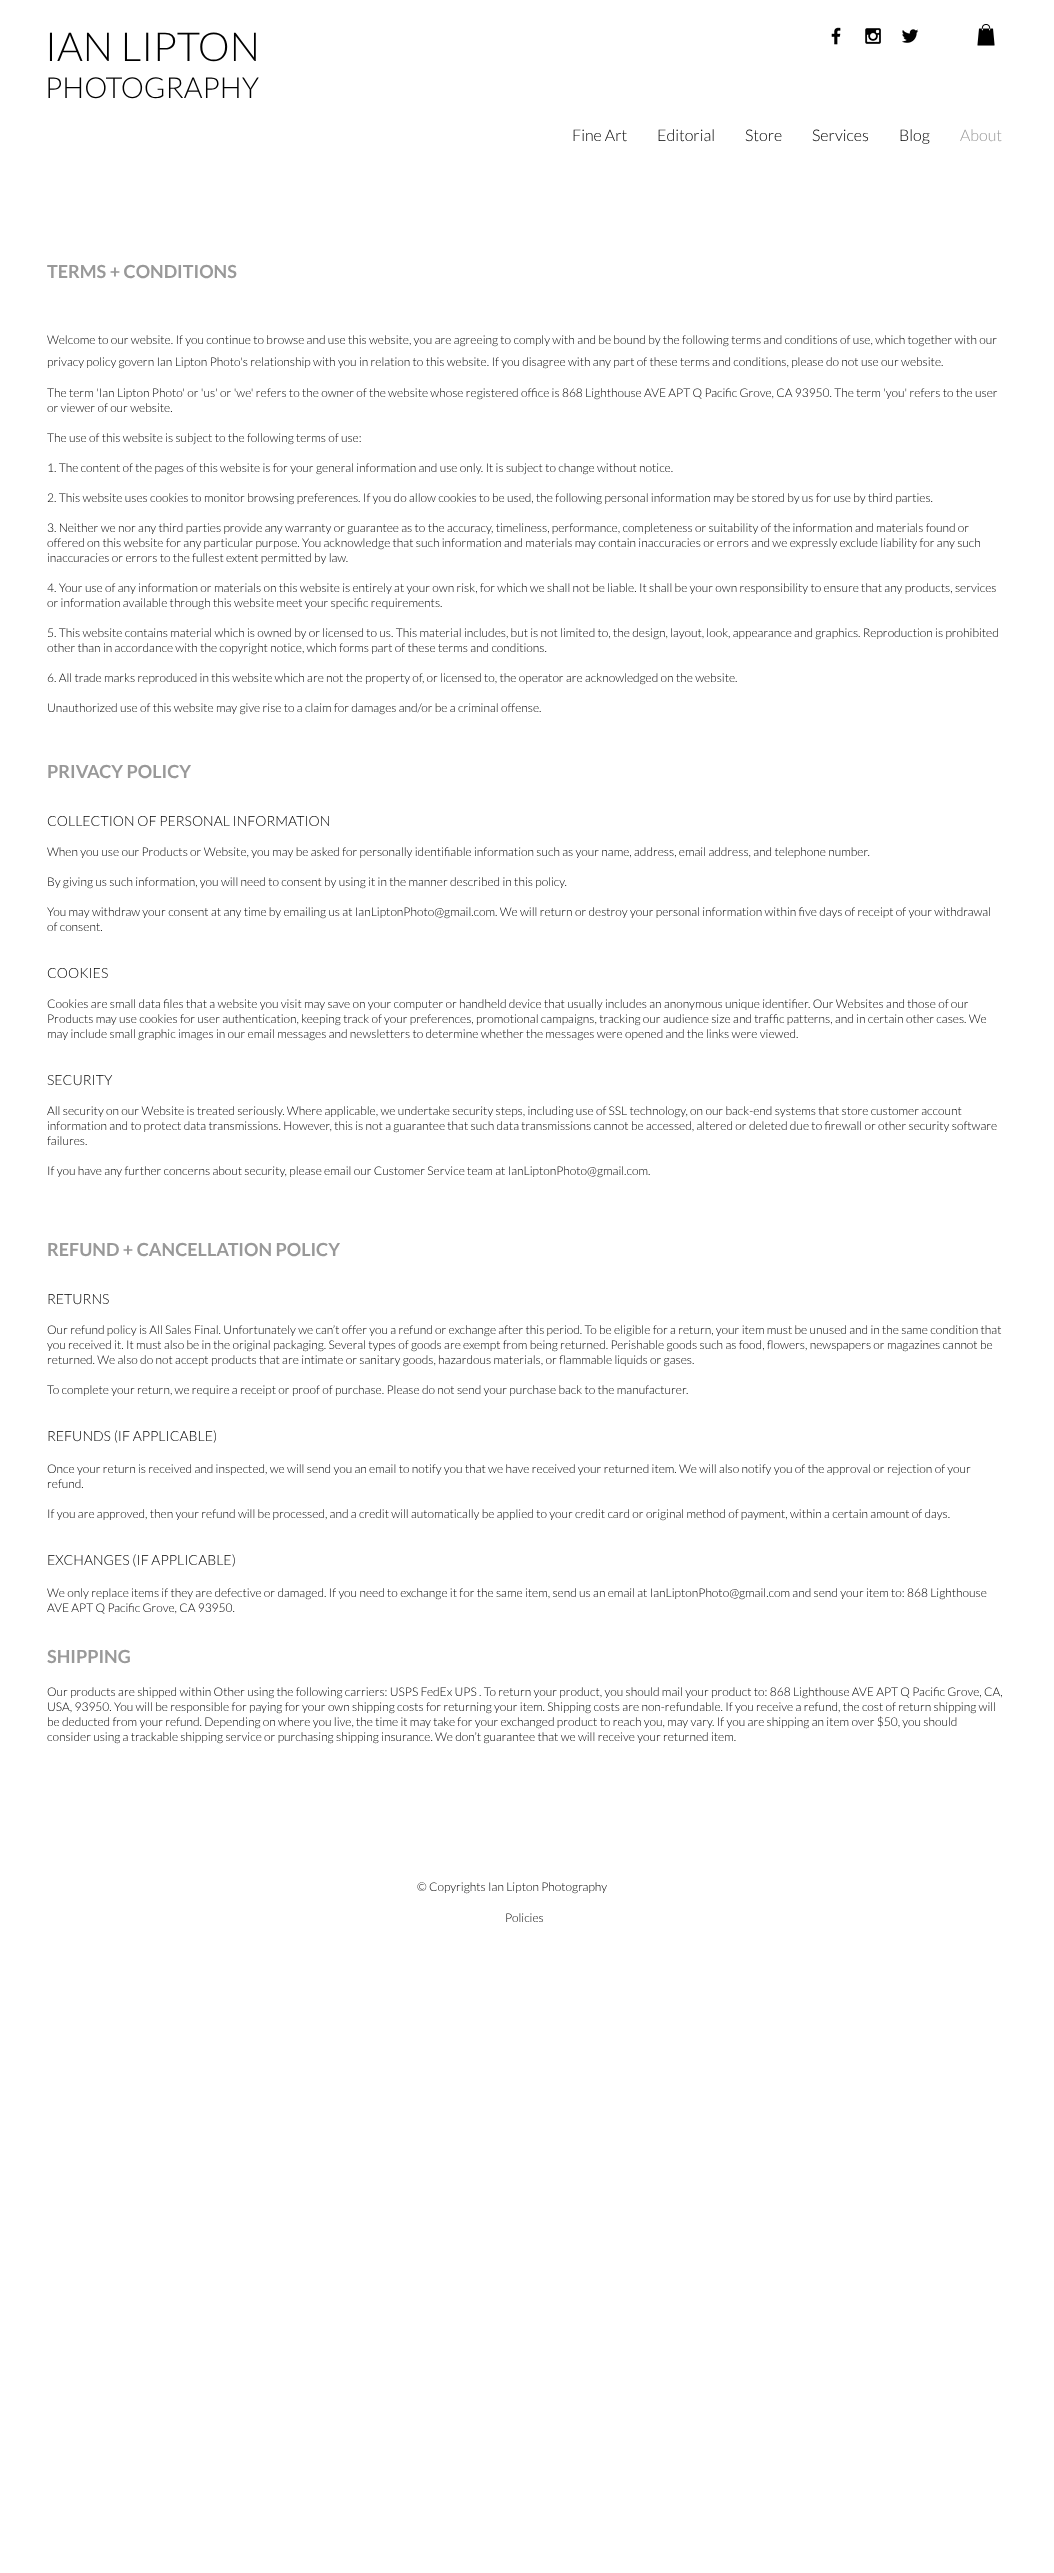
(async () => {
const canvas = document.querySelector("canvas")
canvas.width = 1054
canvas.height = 2573
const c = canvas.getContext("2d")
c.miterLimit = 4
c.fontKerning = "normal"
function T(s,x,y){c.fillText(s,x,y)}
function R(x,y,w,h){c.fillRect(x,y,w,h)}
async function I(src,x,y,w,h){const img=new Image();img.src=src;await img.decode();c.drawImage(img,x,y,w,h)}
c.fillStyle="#fff"
R(0,0,1054,2573)
c.font="300 40px Lato"
c.fillStyle="#000"
T("IAN LIPTON",45,61)
c.font="300 29px Lato"
T("PHOTOGRAPHY",45,98)
await I("1.png",831,27,10,18)
await I("2.png",865,28,16,16)
await I("3.png",902,29,17,14)
await I("4.png",977,24,18,22)
c.font="300 16px Lato"
T("Fine Art",572,141)
T("Editorial",657,141)
T("Store",745,141)
T("Services",812,141)
T("Blog",899,141)
c.fillStyle="#999"
T("About",960,141)
c.font="bold 18px Lato"
T("TERMS + CONDITIONS",47,278)
c.font="300 12px Lato"
c.fillStyle="#000"
T("Welcome to our website. If you continue to browse and use this website, you are agreeing to comply with and be bound by the following terms and conditions of use, which together with our",47,344)
T("privacy policy govern Ian Lipton Photo's relationship with you in relation to this website. If you disagree with any part of these terms and conditions, please do not use our website.",47,366)
T("The term 'Ian Lipton Photo' or 'us' or 'we' refers to the owner of the website whose registered office is 868 Lighthouse AVE APT Q Pacific Grove, CA 93950. The term 'you' refers to the user",47,397)
T("or viewer of our website.",47,412)
T("The use of this website is subject to the following terms of use:",47,442)
T("1. The content of the pages of this website is for your general information and use only. It is subject to change without notice.",47,472)
T("2. This website uses cookies to monitor browsing preferences. If you do allow cookies to be used, the following personal information may be stored by us for use by third parties.",47,502)
T("3. Neither we nor any third parties provide any warranty or guarantee as to the accuracy, timeliness, performance, completeness or suitability of the information and materials found or",47,532)
T("offered on this website for any particular purpose. You acknowledge that such information and materials may contain inaccuracies or errors and we expressly exclude liability for any such",47,547)
T("inaccuracies or errors to the fullest extent permitted by law.",47,562)
T("4. Your use of any information or materials on this website is entirely at your own risk, for which we shall not be liable. It shall be your own responsibility to ensure that any products, services",47,592)
T("or information available through this website meet your specific requirements.",47,607)
T("5. This website contains material which is owned by or licensed to us. This material includes, but is not limited to, the design, layout, look, appearance and graphics. Reproduction is prohibited",47,637)
T("other than in accordance with the copyright notice, which forms part of these terms and conditions.",47,652)
T("6. All trade marks reproduced in this website which are not the property of, or licensed to, the operator are acknowledged on the website.",47,682)
T("Unauthorized use of this website may give rise to a claim for damages and/or be a criminal offense.",47,712)
c.font="bold 18px Lato"
c.fillStyle="#999"
T("PRIVACY POLICY",47,778)
c.font="300 14px Lato"
c.fillStyle="#000"
T("COLLECTION OF PERSONAL INFORMATION",47,826)
c.font="300 12px Lato"
T("When you use our Products or Website, you may be asked for personally identifiable information such as your name, address, email address, and telephone number.",47,856)
T("By giving us such information, you will need to consent by using it in the manner described in this policy.",47,886)
T("You may withdraw your consent at any time by emailing us at IanLiptonPhoto@gmail.com. We will return or destroy your personal information within five days of receipt of your withdrawal",47,916)
T("of consent.",47,931)
c.font="300 14px Lato"
T("COOKIES",47,978)
c.font="300 12px Lato"
T("Cookies are small data files that a website you visit may save on your computer or handheld device that usually includes an anonymous unique identifier. Our Websites and those of our",47,1008)
T("Products may use cookies for user authentication, keeping track of your preferences, promotional campaigns, tracking our audience size and traffic patterns, and in certain other cases. We",47,1023)
T("may include small graphic images in our email messages and newsletters to determine whether the messages were opened and the links were viewed.",47,1038)
c.font="300 14px Lato"
T("SECURITY",47,1085)
c.font="300 12px Lato"
T("All security on our Website is treated seriously. Where applicable, we undertake security steps, including use of SSL technology, on our back-end systems that store customer account",47,1115)
T("information and to protect data transmissions. However, this is not a guarantee that such data transmissions cannot be accessed, altered or deleted due to firewall or other security software",47,1130)
T("failures.",47,1145)
T("If you have any further concerns about security, please email our Customer Service team at IanLiptonPhoto@gmail.com.",47,1175)
c.font="bold 18px Lato"
c.fillStyle="#999"
T("REFUND + CANCELLATION POLICY",47,1256)
c.font="300 14px Lato"
c.fillStyle="#000"
T("RETURNS",47,1304)
c.font="300 12px Lato"
T("Our refund policy is All Sales Final. Unfortunately we can’t offer you a refund or exchange after this period. To be eligible for a return, your item must be unused and in the same condition that",47,1334)
T("you received it. It must also be in the original packaging. Several types of goods are exempt from being returned. Perishable goods such as food, flowers, newspapers or magazines cannot be",47,1349)
T("returned. We also do not accept products that are intimate or sanitary goods, hazardous materials, or flammable liquids or gases.",47,1364)
T("To complete your return, we require a receipt or proof of purchase. Please do not send your purchase back to the manufacturer.",47,1394)
c.font="300 14px Lato"
T("REFUNDS (IF APPLICABLE)",47,1441)
c.font="300 12px Lato"
T("Once your return is received and inspected, we will send you an email to notify you that we have received your returned item. We will also notify you of the approval or rejection of your",47,1473)
T("refund.",47,1488)
T("If you are approved, then your refund will be processed, and a credit will automatically be applied to your credit card or original method of payment, within a certain amount of days.",47,1518)
c.font="300 14px Lato"
T("EXCHANGES (IF APPLICABLE)",47,1565)
c.font="300 12px Lato"
T("We only replace items if they are defective or damaged. If you need to exchange it for the same item, send us an email at IanLiptonPhoto@gmail.com and send your item to: 868 Lighthouse",47,1597)
T("AVE APT Q Pacific Grove, CA 93950.",47,1612)
c.font="bold 18px Lato"
c.fillStyle="#999"
T("SHIPPING",47,1663)
c.font="300 12px Lato"
c.fillStyle="#000"
T("Our products are shipped within Other using the following carriers: USPS FedEx UPS . To return your product, you should mail your product to: 868 Lighthouse AVE APT Q Pacific Grove, CA,",47,1696)
T("USA, 93950. You will be responsible for paying for your own shipping costs for returning your item. Shipping costs are non-refundable. If you receive a refund, the cost of return shipping will",47,1711)
T("be deducted from your refund. Depending on where you live, the time it may take for your exchanged product to reach you, may vary. If you are shipping an item over $50, you should",47,1726)
T("consider using a trackable shipping service or purchasing shipping insurance. We don’t guarantee that we will receive your returned item.",47,1741)
T("© Copyrights Ian Lipton Photography",417,1891)
T("Policies",505,1922)
})()
